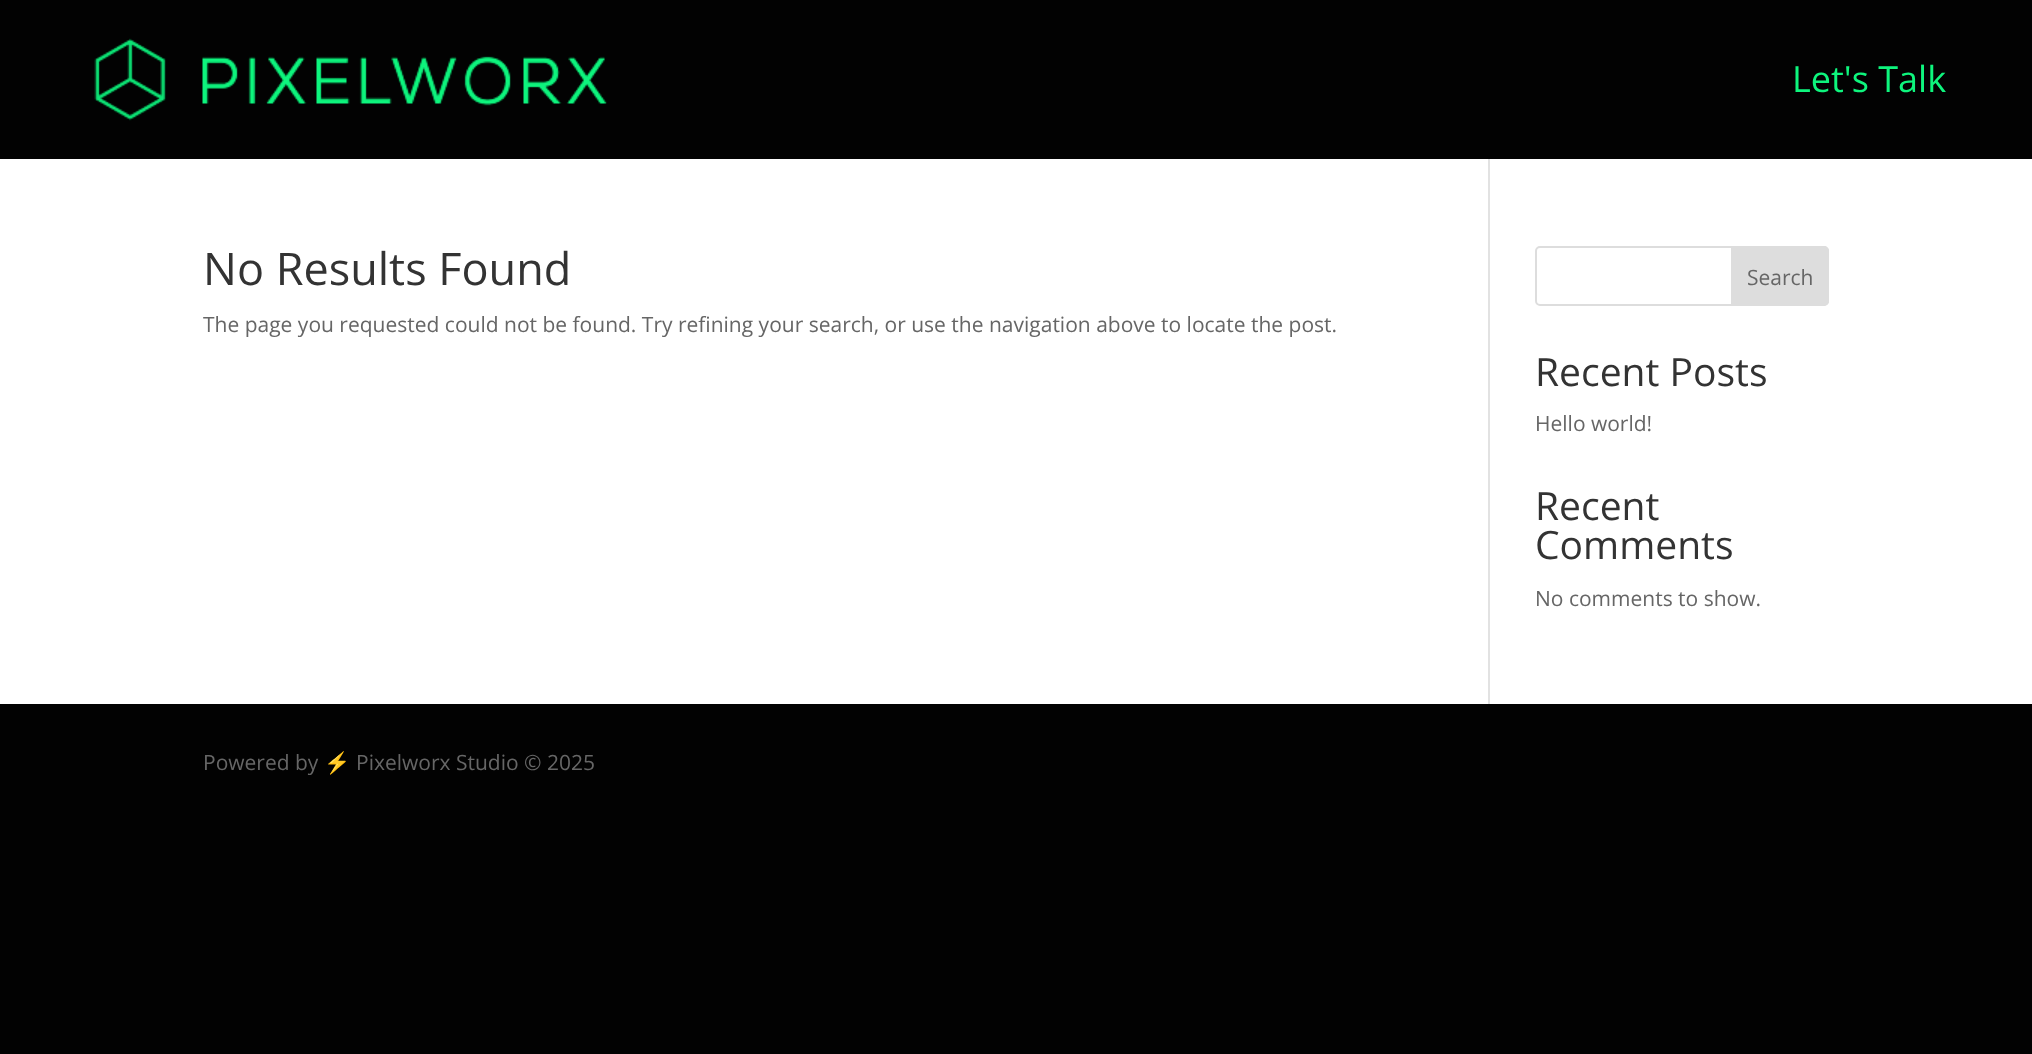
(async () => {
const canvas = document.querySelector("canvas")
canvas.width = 2032
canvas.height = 1054
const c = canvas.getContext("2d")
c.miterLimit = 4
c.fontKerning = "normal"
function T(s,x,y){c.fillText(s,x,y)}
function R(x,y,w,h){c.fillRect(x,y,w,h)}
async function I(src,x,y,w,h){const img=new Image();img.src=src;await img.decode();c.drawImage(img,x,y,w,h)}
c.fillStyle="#020202"
R(0,0,2032,1054)
await I("1.png",94,38,513,83)
c.font="36px Open Sans"
c.fillStyle="#0ef57d"
T("Let's Talk",1792,92)
c.fillStyle="#fff"
R(0,159,2032,545)
c.fillStyle="#e2e2e2"
R(1488,159,2,545)
c.font="45px Open Sans"
c.fillStyle="#333"
T("No Results Found",203,285)
c.font="21px Open Sans"
c.fillStyle="#666"
T("The page you requested could not be found. Try refining your search, or use the navigation above to locate the post.",203,332)
c.beginPath()
c.roundRect(1536,247,292,58,4)
c.strokeStyle="#ddd"
c.lineWidth=2
c.stroke()
c.fillStyle="#ddd"
c.beginPath()
c.roundRect(1732,247,96,58,[0,4,4,0])
c.fill()
c.stroke()
c.fillStyle="#666"
T("Search",1747,285)
c.font="39px Open Sans"
c.fillStyle="#333"
T("Recent Posts",1535,386)
c.font="21px Open Sans"
c.fillStyle="#666"
T("Hello world!",1535,431)
c.font="39px Open Sans"
c.fillStyle="#333"
T("Recent",1535,520)
T("Comments",1535,559)
c.font="21px Open Sans"
c.fillStyle="#666"
T("No comments to show.",1535,606)
T("Powered by",203,770)
c.font="21px Noto Color Emoji"
T("⚡️",324,770)
c.font="21px Open Sans"
T("Pixelworx Studio © 2025",356,770)
})()
